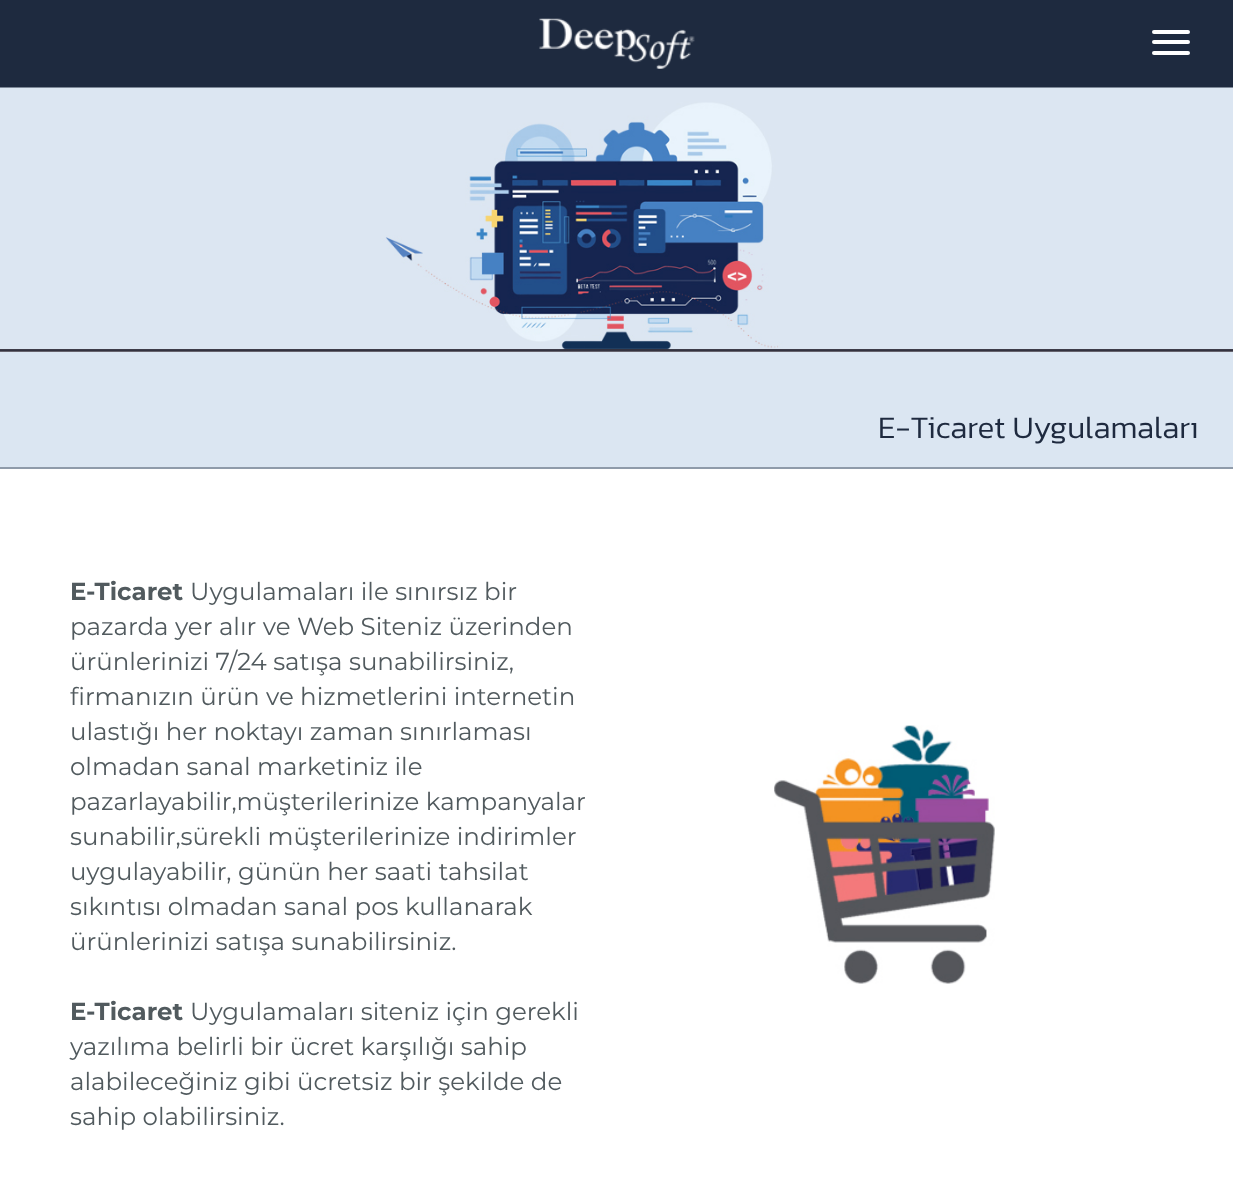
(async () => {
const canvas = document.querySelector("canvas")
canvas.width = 1233
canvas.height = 1177
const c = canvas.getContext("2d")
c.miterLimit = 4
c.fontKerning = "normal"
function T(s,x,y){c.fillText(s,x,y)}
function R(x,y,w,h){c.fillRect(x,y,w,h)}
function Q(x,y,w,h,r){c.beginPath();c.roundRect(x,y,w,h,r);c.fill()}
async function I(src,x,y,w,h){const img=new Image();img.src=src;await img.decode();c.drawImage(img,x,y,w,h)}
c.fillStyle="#fff"
R(0,0,1233,1177)
c.fillStyle="#1e2a3f"
R(0,0,1233,88)
await I("1.png",539,18,156,51)
c.fillStyle="#fff"
Q(1152,30,38,4,2)
Q(1152,40,38,4,2)
Q(1152,51,38,4,2)
await I("2.png",0,87,1233,265)
c.fillStyle="#dbe6f2"
R(0,352,1233,115)
c.fillStyle="#8f9baa"
R(0,467,1233,2)
c.font="300 31.5px Kanit"
c.fillStyle="#1e2a3f"
T("E-Ticaret Uygulamaları",878,438)
c.font="bold 24.5px Montserrat"
c.fillStyle="#515a5e"
T("E-Ticaret",70,600)
c.font="24.5px Montserrat"
T("Uygulamaları ile sınırsız bir",190,600)
T("pazarda yer alır ve Web Siteniz üzerinden",70,635)
T("ürünlerinizi 7/24 satışa sunabilirsiniz,",70,670)
T("firmanızın ürün ve hizmetlerini internetin",70,705)
T("ulastığı her noktayı zaman sınırlaması",70,740)
T("olmadan sanal marketiniz ile",70,775)
T("pazarlayabilir,müşterilerinize kampanyalar",70,810)
T("sunabilir,sürekli müşterilerinize indirimler",70,845)
T("uygulayabilir, günün her saati tahsilat",70,880)
T("sıkıntısı olmadan sanal pos kullanarak",70,915)
T("ürünlerinizi satışa sunabilirsiniz.",70,950)
c.font="bold 24.5px Montserrat"
T("E-Ticaret",70,1020)
c.font="24.5px Montserrat"
T("Uygulamaları siteniz için gerekli",190,1020)
T("yazılıma belirli bir ücret karşılığı sahip",70,1055)
T("alabileceğiniz gibi ücretsiz bir şekilde de",70,1090)
T("sahip olabilirsiniz.",70,1125)
await I("3.png",774,725,221,259)
})()
